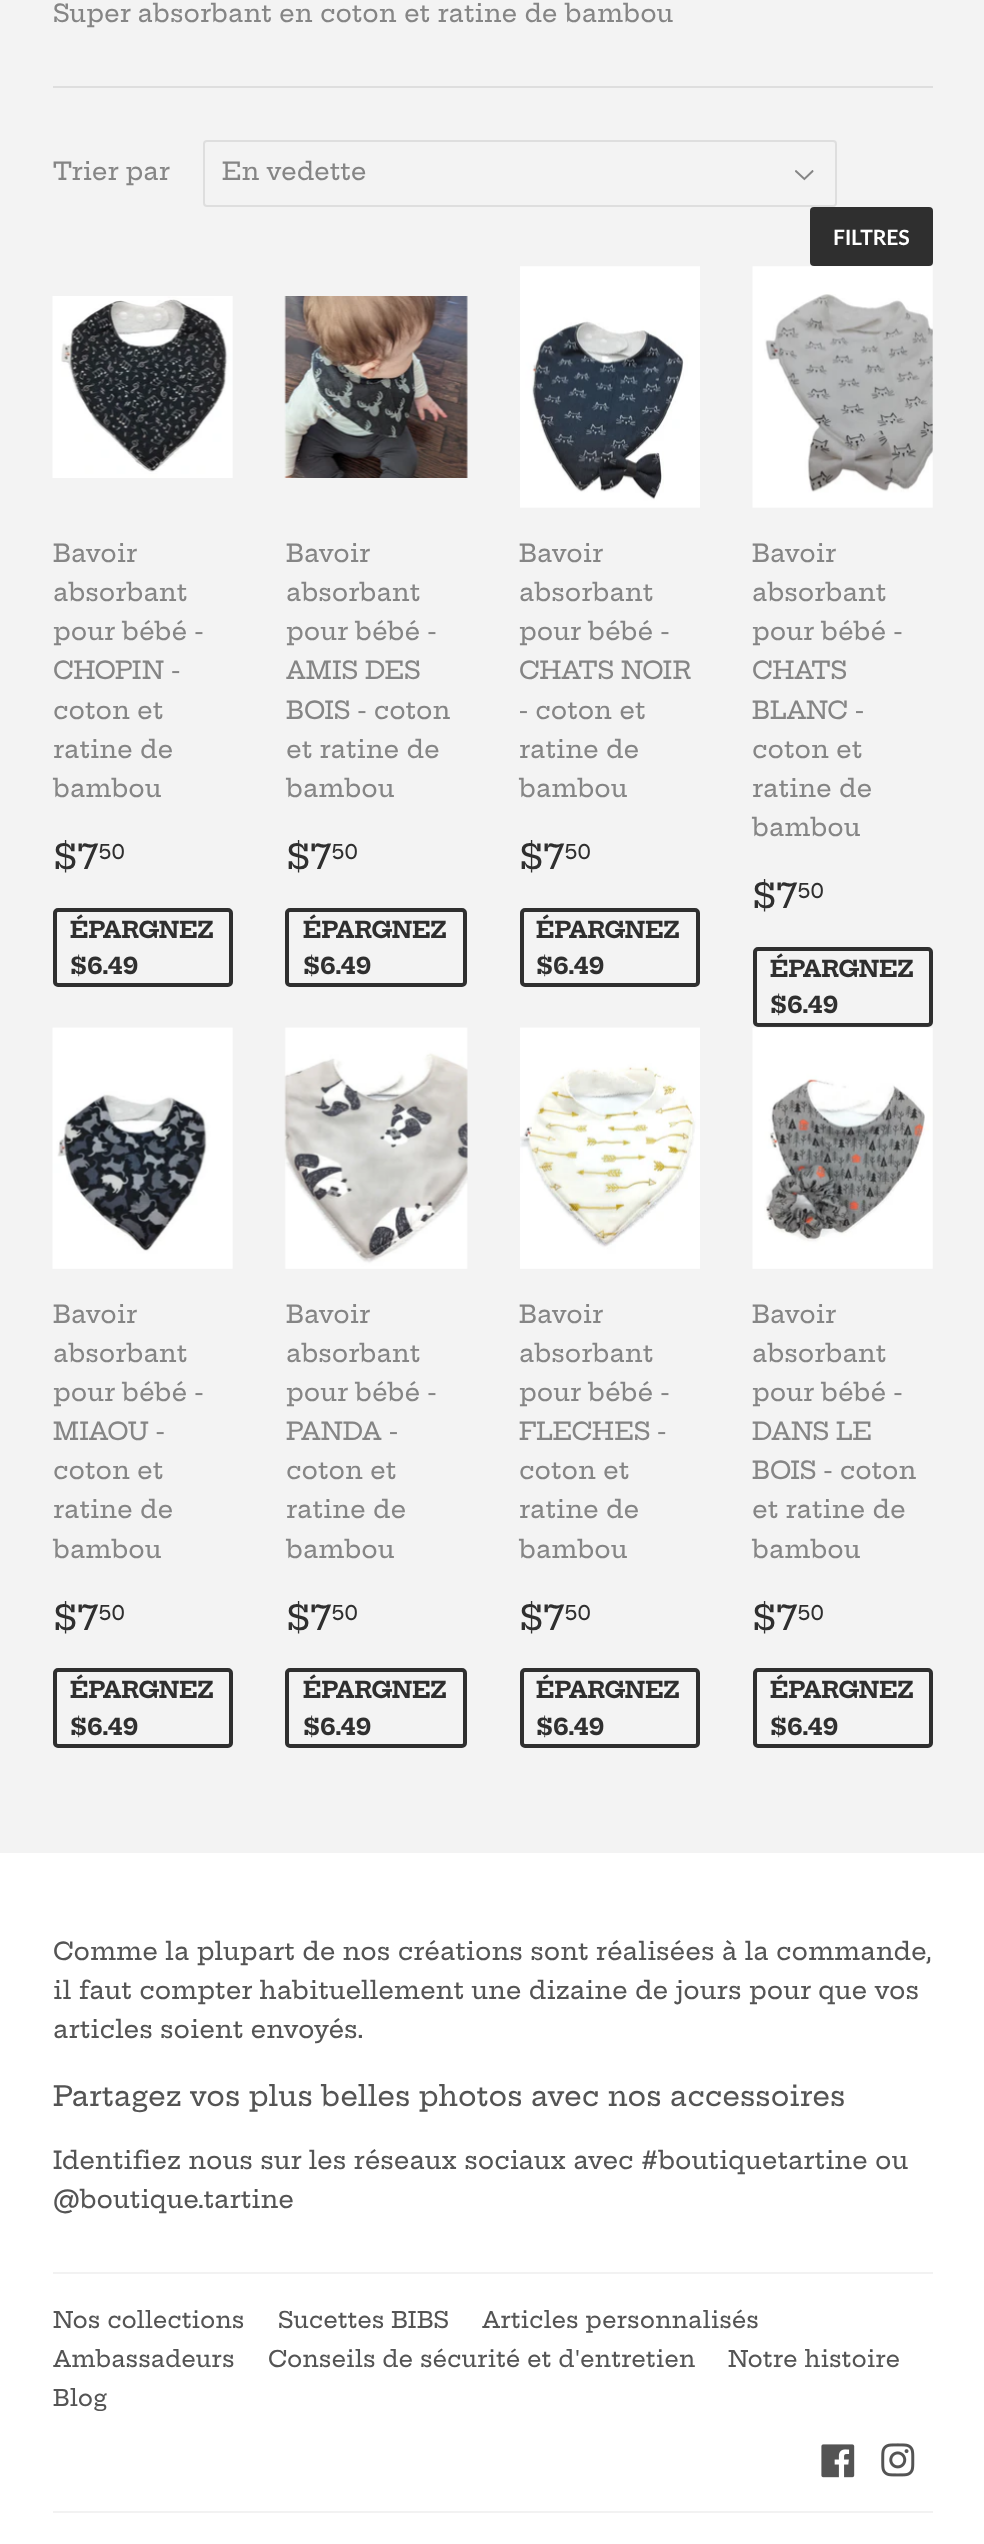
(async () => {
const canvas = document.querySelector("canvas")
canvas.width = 984
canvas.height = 2544
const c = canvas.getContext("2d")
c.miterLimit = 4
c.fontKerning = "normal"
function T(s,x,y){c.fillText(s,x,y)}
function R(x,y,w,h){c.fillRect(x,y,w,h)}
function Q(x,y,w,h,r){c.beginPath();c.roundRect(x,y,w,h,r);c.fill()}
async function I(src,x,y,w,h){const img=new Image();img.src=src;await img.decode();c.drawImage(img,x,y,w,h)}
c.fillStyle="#f3f3f3"
R(0,0,984,2544)
c.font="500 24.5px Hepta Slab"
c.fillStyle="#858585"
T("Super absorbant en coton et ratine de bambou",53,22)
c.fillStyle="#dedede"
R(53,86,880,2)
c.fillStyle="#858585"
T("Trier par",53,180)
await I("1.png",795,170,19,11)
c.beginPath()
c.roundRect(204,141,632,65,3)
c.strokeStyle="#dedede"
c.lineWidth=2
c.stroke()
T("En vedette",222,180)
c.fillStyle="#2f2f2f"
Q(810,207,123,59,4)
c.font="bold 21px Lato"
c.fillStyle="#fff"
T("FILTRES",833,245)
await I("2.png",52,296,181,182)
c.font="500 24.5px Hepta Slab"
c.fillStyle="#858585"
T("Bavoir",53,562)
T("absorbant",53,601)
T("pour bébé -",53,640)
T("CHOPIN -",53,679)
T("coton et",53,719)
T("ratine de",53,758)
T("bambou",53,797)
c.font="500 34px Hepta Slab"
c.fillStyle="#2f2f2f"
T("$7",53,869)
c.font="500 20px Hepta Slab"
T("50",98,859)
c.beginPath()
c.roundRect(55,910,176,75,3)
c.strokeStyle="#2f2f2f"
c.lineWidth=4
c.stroke()
c.font="bold 22.75px Hepta Slab"
T("ÉPARGNEZ",70,938)
T("$6.49",70,974)
await I("3.png",284,296,184,182)
c.font="500 24.5px Hepta Slab"
c.fillStyle="#858585"
T("Bavoir",286,562)
T("absorbant",286,601)
T("pour bébé -",286,640)
T("AMIS DES",286,679)
T("BOIS - coton",286,719)
T("et ratine de",286,758)
T("bambou",286,797)
c.font="500 34px Hepta Slab"
c.fillStyle="#2f2f2f"
T("$7",286,869)
c.font="500 20px Hepta Slab"
T("50",331,859)
c.beginPath()
c.roundRect(287,910,178,75,3)
c.stroke()
c.font="bold 22.75px Hepta Slab"
T("ÉPARGNEZ",303,938)
T("$6.49",303,974)
await I("4.png",520,266,180,242)
c.font="500 24.5px Hepta Slab"
c.fillStyle="#858585"
T("Bavoir",519,562)
T("absorbant",519,601)
T("pour bébé -",519,640)
T("CHATS NOIR",519,679)
T("- coton et",519,719)
T("ratine de",519,758)
T("bambou",519,797)
c.font="500 34px Hepta Slab"
c.fillStyle="#2f2f2f"
T("$7",519,869)
c.font="500 20px Hepta Slab"
T("50",564,859)
c.beginPath()
c.roundRect(522,910,176,75,3)
c.stroke()
c.font="bold 22.75px Hepta Slab"
T("ÉPARGNEZ",536,938)
T("$6.49",536,974)
await I("5.png",752,266,181,242)
c.font="500 24.5px Hepta Slab"
c.fillStyle="#858585"
T("Bavoir",752,562)
T("absorbant",752,601)
T("pour bébé -",752,640)
T("CHATS",752,679)
T("BLANC -",752,719)
T("coton et",752,758)
T("ratine de",752,797)
T("bambou",752,836)
c.font="500 34px Hepta Slab"
c.fillStyle="#2f2f2f"
T("$7",752,908)
c.font="500 20px Hepta Slab"
T("50",797,898)
c.beginPath()
c.roundRect(755,949,176,76,3)
c.stroke()
c.font="bold 22.75px Hepta Slab"
T("ÉPARGNEZ",770,977)
T("$6.49",770,1013)
await I("6.png",52,1027,181,242)
c.font="500 24.5px Hepta Slab"
c.fillStyle="#858585"
T("Bavoir",53,1323)
T("absorbant",53,1362)
T("pour bébé -",53,1401)
T("MIAOU -",53,1440)
T("coton et",53,1479)
T("ratine de",53,1518)
T("bambou",53,1558)
c.font="500 34px Hepta Slab"
c.fillStyle="#2f2f2f"
T("$7",53,1630)
c.font="500 20px Hepta Slab"
T("50",98,1620)
c.beginPath()
c.roundRect(55,1670,176,76,3)
c.stroke()
c.font="bold 22.75px Hepta Slab"
T("ÉPARGNEZ",70,1698)
T("$6.49",70,1735)
await I("7.png",284,1027,184,242)
c.font="500 24.5px Hepta Slab"
c.fillStyle="#858585"
T("Bavoir",286,1323)
T("absorbant",286,1362)
T("pour bébé -",286,1401)
T("PANDA -",286,1440)
T("coton et",286,1479)
T("ratine de",286,1518)
T("bambou",286,1558)
c.font="500 34px Hepta Slab"
c.fillStyle="#2f2f2f"
T("$7",286,1630)
c.font="500 20px Hepta Slab"
T("50",331,1620)
c.beginPath()
c.roundRect(287,1670,178,76,3)
c.stroke()
c.font="bold 22.75px Hepta Slab"
T("ÉPARGNEZ",303,1698)
T("$6.49",303,1735)
await I("8.png",520,1027,180,242)
c.font="500 24.5px Hepta Slab"
c.fillStyle="#858585"
T("Bavoir",519,1323)
T("absorbant",519,1362)
T("pour bébé -",519,1401)
T("FLECHES -",519,1440)
T("coton et",519,1479)
T("ratine de",519,1518)
T("bambou",519,1558)
c.font="500 34px Hepta Slab"
c.fillStyle="#2f2f2f"
T("$7",519,1630)
c.font="500 20px Hepta Slab"
T("50",564,1620)
c.beginPath()
c.roundRect(522,1670,176,76,3)
c.stroke()
c.font="bold 22.75px Hepta Slab"
T("ÉPARGNEZ",536,1698)
T("$6.49",536,1735)
await I("9.png",752,1026,181,243)
c.font="500 24.5px Hepta Slab"
c.fillStyle="#858585"
T("Bavoir",752,1323)
T("absorbant",752,1362)
T("pour bébé -",752,1401)
T("DANS LE",752,1440)
T("BOIS - coton",752,1479)
T("et ratine de",752,1518)
T("bambou",752,1558)
c.font="500 34px Hepta Slab"
c.fillStyle="#2f2f2f"
T("$7",752,1630)
c.font="500 20px Hepta Slab"
T("50",797,1620)
c.beginPath()
c.roundRect(755,1670,176,76,3)
c.stroke()
c.font="bold 22.75px Hepta Slab"
T("ÉPARGNEZ",770,1698)
T("$6.49",770,1735)
c.fillStyle="#fff"
R(0,1853,984,691)
c.font="500 24.5px Hepta Slab"
c.fillStyle="#545454"
T("Comme la plupart de nos créations sont réalisées à la commande,",53,1960)
T("il faut compter habituellement une dizaine de jours pour que vos",53,1999)
T("articles soient envoyés.",53,2038)
c.font="500 27.75px Hepta Slab"
T("Partagez vos plus belles photos avec nos accessoires",53,2106)
c.font="500 24.5px Hepta Slab"
T("Identifiez nous sur les réseaux sociaux avec #boutiquetartine ou",53,2169)
T("@boutique.tartine",53,2208)
c.fillStyle="#f2f2f2"
R(53,2272,880,2)
c.font="500 22.75px Hepta Slab"
c.fillStyle="#545454"
T("Nos collections",53,2328)
T("Sucettes BIBS",278,2328)
T("Articles personnalisés",482,2328)
T("Ambassadeurs",53,2367)
T("Conseils de sécurité et d'entretien",268,2367)
T("Notre histoire",728,2367)
T("Blog",53,2406)
await I("10.png",821,2444,34,34)
await I("11.png",881,2443,34,34)
c.fillStyle="#f2f2f2"
R(53,2511,880,2)
})()
